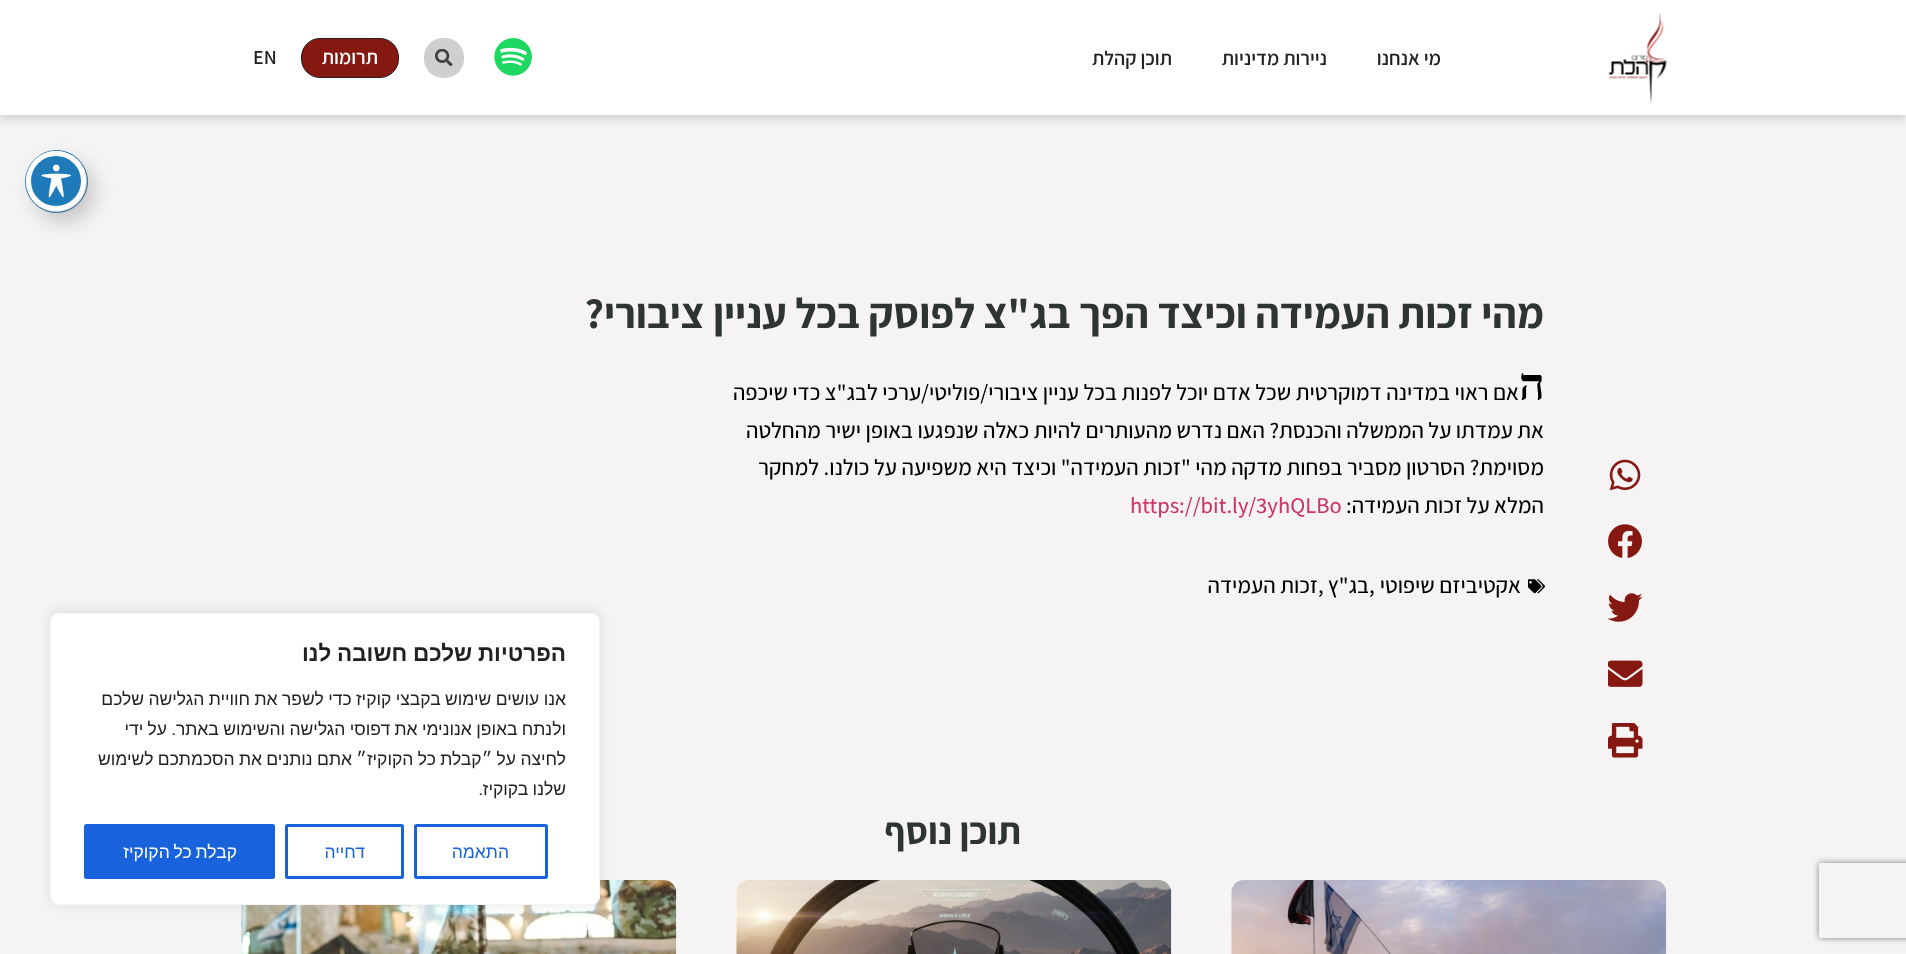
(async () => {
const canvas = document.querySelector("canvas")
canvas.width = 1906
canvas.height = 954
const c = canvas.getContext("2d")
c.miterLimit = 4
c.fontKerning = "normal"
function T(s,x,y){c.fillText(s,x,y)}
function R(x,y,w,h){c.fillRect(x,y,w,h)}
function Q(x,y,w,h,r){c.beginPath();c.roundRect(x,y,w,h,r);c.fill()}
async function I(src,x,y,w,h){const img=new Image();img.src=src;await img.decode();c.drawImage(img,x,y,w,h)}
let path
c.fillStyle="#f5f3f3"
R(0,0,1906,954)
c.fillStyle="#14141429"
c.filter="blur(4px)"
c.beginPath()
c.rect(0,4,1906,115)
c.fill()
c.filter="none"
c.fillStyle="#fff"
R(0,0,1906,115)
await I("1.png",1608,13,59,90)
c.direction="rtl"
c.font="600 20px Assistant"
c.fillStyle="#212121"
T("מי אנחנו",1441,65)
T("ניירות מדיניות",1327,65)
T("תוכן קהלת",1172,65)
await I("2.png",494,38,38,38)
c.fillStyle="#d1cece"
Q(424,38,40,40,19)
await I("3.png",435,49,18,17)
c.fillStyle="#851811"
c.beginPath()
c.roundRect(301.5,38.5,97,39,18.5)
c.fill()
c.strokeStyle="#212121"
c.stroke()
c.fillStyle="#fff"
T("תרומות",378,64)
c.direction="ltr"
c.fillStyle="#212121"
T("EN",253,64)
c.beginPath()
c.arc(56.5,181.5,31,0,7)
c.strokeStyle="#1e7ab9"
c.stroke()
c.fillStyle="#00000033"
c.filter="blur(10px)"
c.beginPath()
c.roundRect(34,161,60,60,30)
c.fill()
c.filter="none"
c.fillStyle="#1e7ab9"
c.beginPath()
c.arc(56,181,27.5,0,7)
c.fill()
c.strokeStyle="#fff"
c.lineWidth=5
c.stroke()
await I("4.png",41,164,30,34)
await I("5.png",1609,459,32,32)
await I("6.png",1608,524,34,34)
await I("7.png",1608,593,35,29)
await I("8.png",1608,660,35,27)
await I("9.png",1608,723,35,35)
c.direction="rtl"
c.font="bold 42.5px Assistant"
c.fillStyle="#2e3333"
T("מהי זכות העמידה וכיצד הפך בג\"צ לפוסק בכל עניין ציבורי?",1544,328)
c.font="900 45px Noto Sans"
c.fillStyle="#000"
T("ה",1545,400)
c.font="500 22.5px Assistant"
T("אם ראוי במדינה דמוקרטית שכל אדם יוכל לפנות בכל עניין ציבורי/פוליטי/ערכי לבג\"צ כדי שיכפה",1519,400)
T("את עמדתו על הממשלה והכנסת? האם נדרש מהעותרים להיות כאלה שנפגעו באופן ישיר מהחלטה",1544,438)
T("מסוימת? הסרטון מסביר בפחות מדקה מהי \"זכות העמידה\" וכיצד היא משפיעה על כולנו. למחקר",1544,475)
T("המלא על זכות העמידה:",1544,513)
c.direction="ltr"
c.fillStyle="#c36"
T("https://bit.ly/3yhQLBo",1130,513)
await I("10.png",1528,579,17,15)
c.direction="rtl"
c.fillStyle="#000"
T("אקטיביזם שיפוטי",1521,593)
c.direction="ltr"
T(",",1369,593)
c.direction="rtl"
T("בג\"ץ",1369,593)
c.direction="ltr"
T(",",1318,593)
c.direction="rtl"
T("זכות העמידה",1318,593)
c.font="bold 37.5px Assistant"
c.fillStyle="#2e3333"
T("תוכן נוסף",1021,844)
c.fillStyle="#fff"
path = new Path2D("M1244 880h409c7 0 13 6 13 13v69c0 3-2 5-5 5h-425c-3 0-5-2-5-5v-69c0-7 6-13 13-13z")
c.fill(path)
await I("11.png",1231,880,436,74)
path = new Path2D("M749 880h409c7 0 13 6 13 13v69c0 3-2 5-5 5h-425c-3 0-5-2-5-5v-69c0-7 6-13 13-13z")
c.fill(path)
await I("12.png",736,880,436,74)
path = new Path2D("M254 880h409c7 0 13 6 13 13v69c0 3-2 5-5 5h-425c-3 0-5-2-5-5v-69c0-7 6-13 13-13z")
c.fill(path)
await I("13.png",241,880,436,74)
c.fillStyle="#acabab4d"
c.filter="blur(6px)"
c.beginPath()
c.roundRect(50,611,550,293,8)
c.fill()
c.filter="none"
c.fillStyle="#fff"
c.beginPath()
c.roundRect(50.5,613.5,549,291,7.5)
c.fill()
c.strokeStyle="#f4f4f4"
c.lineWidth=1
c.stroke()
c.wordSpacing="-0.5px"
c.font="bold 22.5px Liberation Sans"
c.fillStyle="#212121"
T("הפרטיות שלכם חשובה לנו",566,661)
c.font="17.5px Liberation Sans"
T("אנו עושים שימוש בקבצי קוקיז כדי לשפר את חוויית הגלישה שלכם",566,705)
T("ולנתח באופן אנונימי את דפוסי הגלישה והשימוש באתר",566,735)
c.wordSpacing="0px"
c.font="17.5px Roboto"
T(".",176,735)
c.wordSpacing="-0.5px"
c.font="17.5px Liberation Sans"
T("על ידי",167,735)
T("לחיצה על ״קבלת כל הקוקיז״ אתם נותנים את הסכמתכם לשימוש",566,765)
T("שלנו בקוקיז",566,795)
c.wordSpacing="0px"
c.font="17.5px Roboto"
T(".",483,795)
c.beginPath()
c.roundRect(415.5,825.5,131,52,1)
c.strokeStyle="#1863dc"
c.lineWidth=3
c.stroke()
c.font="17.5px Liberation Sans"
c.fillStyle="#1863dc"
T("התאמה",509,858)
c.beginPath()
c.roundRect(286.5,825.5,116,52,1)
c.stroke()
T("דחייה",365,858)
c.beginPath()
c.roundRect(85.5,825.5,188,52,1)
c.fill()
c.stroke()
c.wordSpacing="-1px"
c.fillStyle="#fff"
T("קבלת כל הקוקיז",237,858)
c.save()
path = new Path2D("M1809 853h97v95h-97zm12.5 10h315c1.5 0 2.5 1 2.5 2.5v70c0 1.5-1 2.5-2.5 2.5h-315c-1.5 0-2.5-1-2.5-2.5v-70c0-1.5 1-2.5 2.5-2.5z")
c.clip(path,"evenodd")
c.fillStyle="#808080"
c.filter="blur(3px)"
c.beginPath()
c.roundRect(1819,863,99,75,2.5)
c.fill()
c.filter="none"
c.restore()
})()
